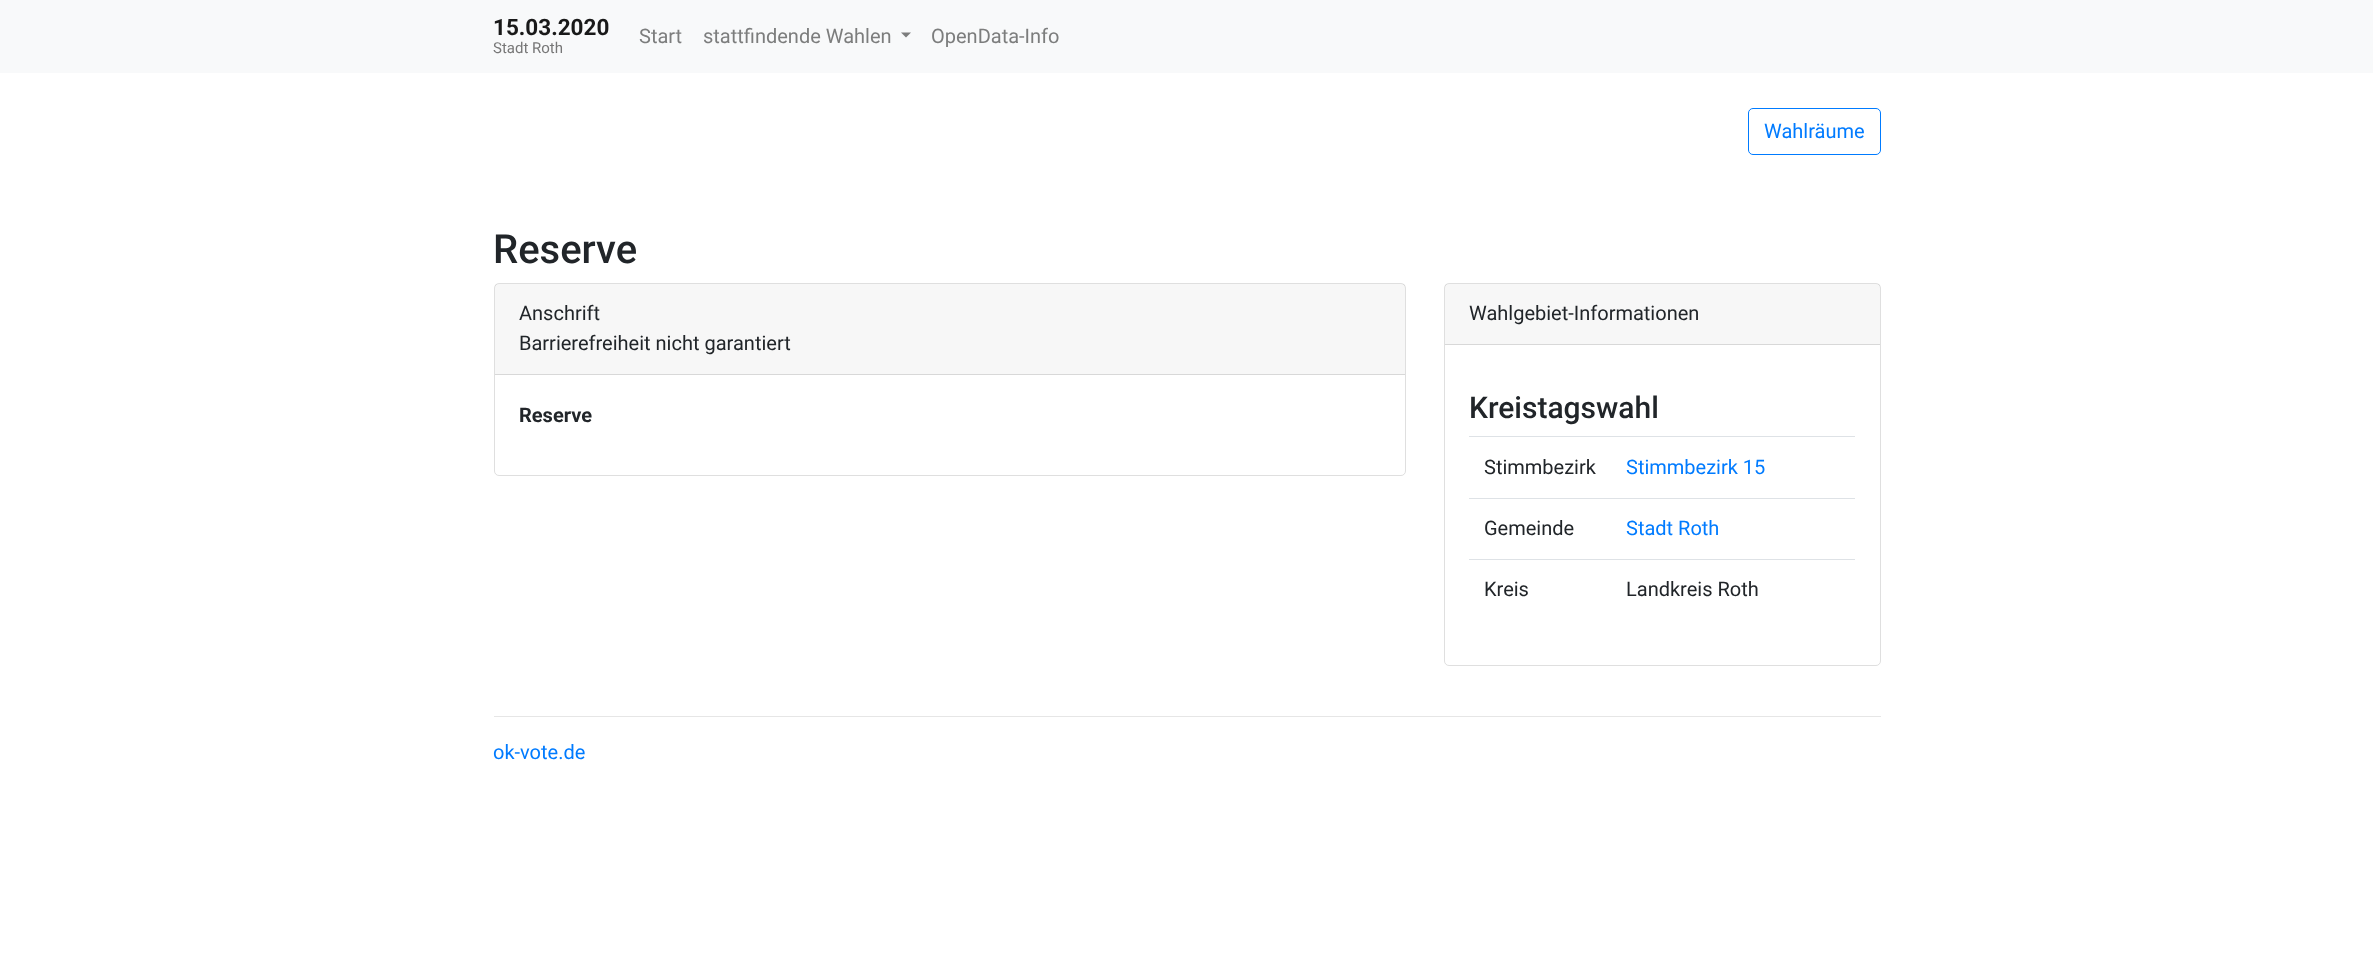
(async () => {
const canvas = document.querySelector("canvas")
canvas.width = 2373
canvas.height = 968
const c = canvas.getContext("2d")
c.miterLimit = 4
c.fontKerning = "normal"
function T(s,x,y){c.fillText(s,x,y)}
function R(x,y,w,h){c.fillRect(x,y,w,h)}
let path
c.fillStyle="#fff"
R(0,0,2373,968)
c.fillStyle="#f8f9fa"
R(0,0,2373,73)
c.font="bold 22.5px Roboto"
c.fillStyle="#191919"
T("15.03.2020",493,35)
c.font="15px Roboto"
c.fillStyle="#777"
T("Stadt Roth",493,53)
c.font="20px Roboto"
c.fillStyle="#7c7d7d"
T("Start",639,43)
T("stattfindende Wahlen",703,43)
path = new Path2D("M901 32.5h10l-5 5z")
c.fill(path)
T("OpenData-Info",931,43)
c.beginPath()
c.roundRect(1748.5,108.5,132,46,4.5)
c.strokeStyle="#007bff"
c.stroke()
c.fillStyle="#007bff"
T("Wahlräume",1764,138)
c.font="500 40px Roboto"
c.fillStyle="#212529"
T("Reserve",493,263)
c.beginPath()
c.roundRect(494.5,283.5,911,192,4.5)
c.strokeStyle="#dfdfdf"
c.stroke()
c.fillStyle="#00000008"
R(495,284,910,90)
c.fillStyle="#d8d8d8"
R(495,374,910,1)
c.font="20px Roboto"
c.fillStyle="#212529"
T("Anschrift",519,320)
T("Barrierefreiheit nicht garantiert",519,350)
c.font="bold 20px Roboto"
T("Reserve",519,422)
c.beginPath()
c.roundRect(1444.5,283.5,436,382,4.5)
c.stroke()
c.fillStyle="#00000008"
R(1445,284,435,60)
c.fillStyle="#d8d8d8"
R(1445,344,435,1)
c.font="20px Roboto"
c.fillStyle="#212529"
T("Wahlgebiet-Informationen",1469,320)
c.font="500 30px Roboto"
T("Kreistagswahl",1469,418)
c.font="20px Roboto"
T("Stimmbezirk",1484,474)
c.fillStyle="#dee2e6"
R(1469,436,386,1)
c.fillStyle="#007bff"
T("Stimmbezirk 15",1626,474)
c.fillStyle="#212529"
T("Gemeinde",1484,535)
c.fillStyle="#dee2e6"
R(1469,498,386,1)
c.fillStyle="#007bff"
T("Stadt Roth",1626,535)
c.fillStyle="#212529"
T("Kreis",1484,596)
c.fillStyle="#dee2e6"
R(1469,559,386,1)
c.fillStyle="#212529"
T("Landkreis Roth",1626,596)
c.fillStyle="#e6e6e6"
R(494,716,1387,1)
c.fillStyle="#007bff"
T("ok-vote.de",493,759)
})()
